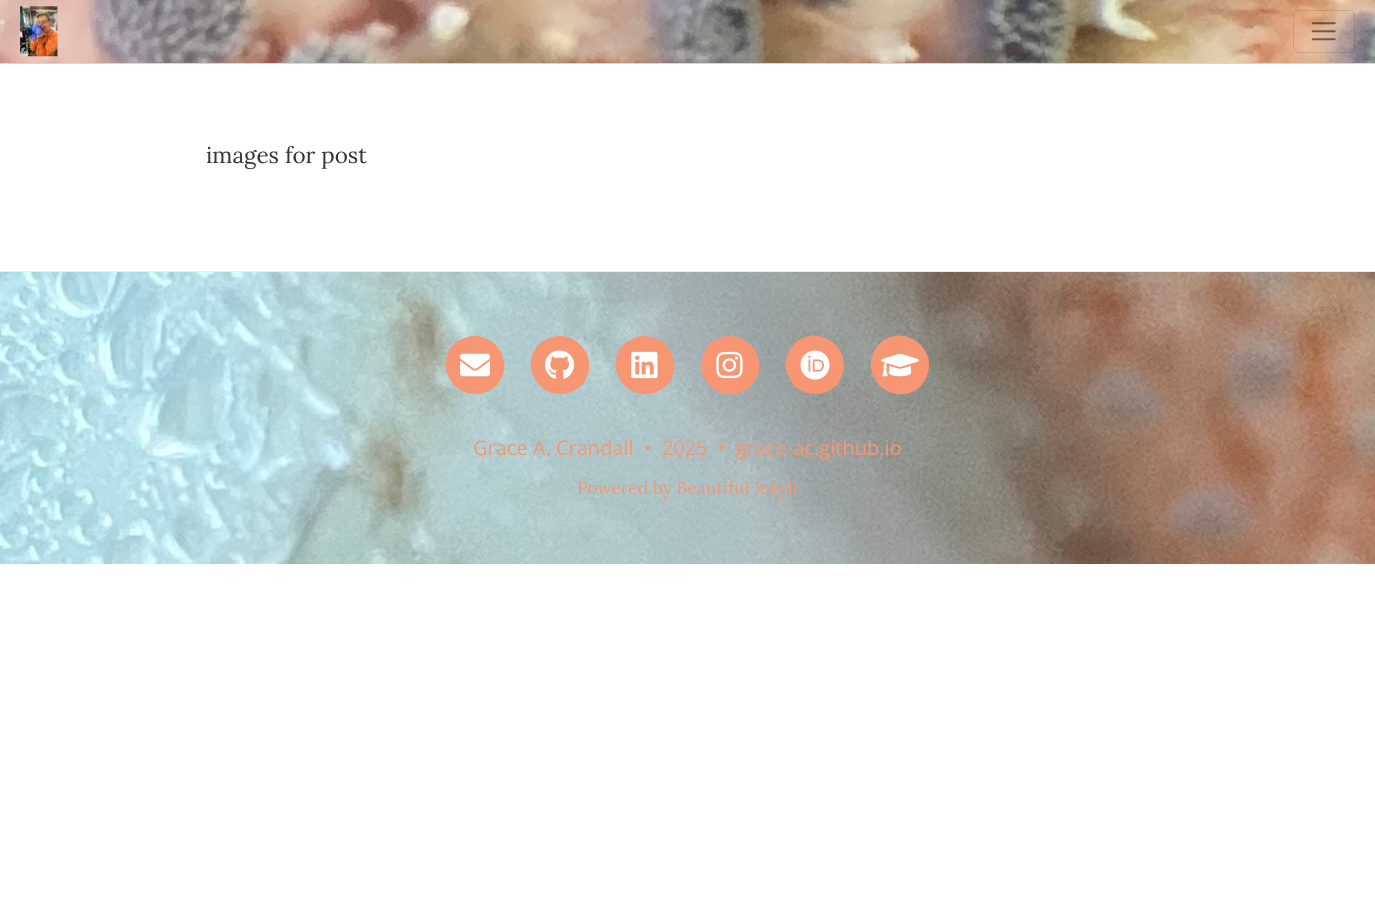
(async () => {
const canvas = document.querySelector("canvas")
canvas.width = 1375
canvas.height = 910
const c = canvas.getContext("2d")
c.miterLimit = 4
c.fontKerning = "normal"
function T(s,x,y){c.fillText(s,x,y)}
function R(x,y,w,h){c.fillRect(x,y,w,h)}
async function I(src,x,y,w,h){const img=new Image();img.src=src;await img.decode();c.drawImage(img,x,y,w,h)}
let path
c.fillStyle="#fff"
R(0,0,1375,910)
await I("1.png",0,0,1375,63)
c.fillStyle="#8ff2ff"
R(0,63,1375,1)
await I("2.png",20,6,38,51)
c.beginPath()
c.roundRect(1293.5,10.5,61,42,4.5)
c.strokeStyle="#0000001a"
c.stroke()
await I("3.png",1311,22,25,19)
c.font="22.5px Lora"
c.fillStyle="#323538"
T("images for post",206,163)
await I("4.png",0,272,1375,292)
c.fillStyle="#eaeaea"
R(0,271,1375,1)
c.fillStyle="#f79672"
path = new Path2D("M454 344c5-4 11-7 18-8c27-2 43 30 24 50c-5 4-11 7-18 8c-27 2-43-30-24-50z")
c.fill(path)
await I("5.png",460,353,30,24)
path = new Path2D("M539 344c5-4 11-7 18-8c27-2 43 30 24 50c-5 4-11 7-18 8c-27 2-43-30-24-50z")
c.fill(path)
await I("6.png",545,350,30,29)
path = new Path2D("M624 344c5-4 11-7 18-8c27-2 43 30 24 50c-5 4-11 7-18 8c-27 2-43-30-24-50z")
c.fill(path)
await I("7.png",631,351,27,28)
path = new Path2D("M709 344c5-4 11-7 18-8c27-2 43 30 24 50c-20 19-52 3-50-24c1-7 4-13 8-18z")
c.fill(path)
await I("8.png",716,351,27,28)
path = new Path2D("M794 344c20-19 52-3 50 24c-1 7-4 13-8 18c-5 4-11 7-18 8c-27 2-43-30-24-50z")
c.fill(path)
await I("9.png",800,350,30,30)
path = new Path2D("M879 344c20-19 52-3 50 24c-1 7-4 13-8 18c-20 19-52 3-50-24c1-7 4-13 8-18z")
c.fill(path)
await I("10.png",881,353,38,24)
c.font="20px Open Sans"
T("Grace A. Crandall",473,455)
T("•",644,455)
T("2025",662,455)
T("•",718,455)
T("grace-ac.github.io",736,455)
c.font="17.5px Lora"
T("Powered by Beautiful Jekyll",577,494)
})()
